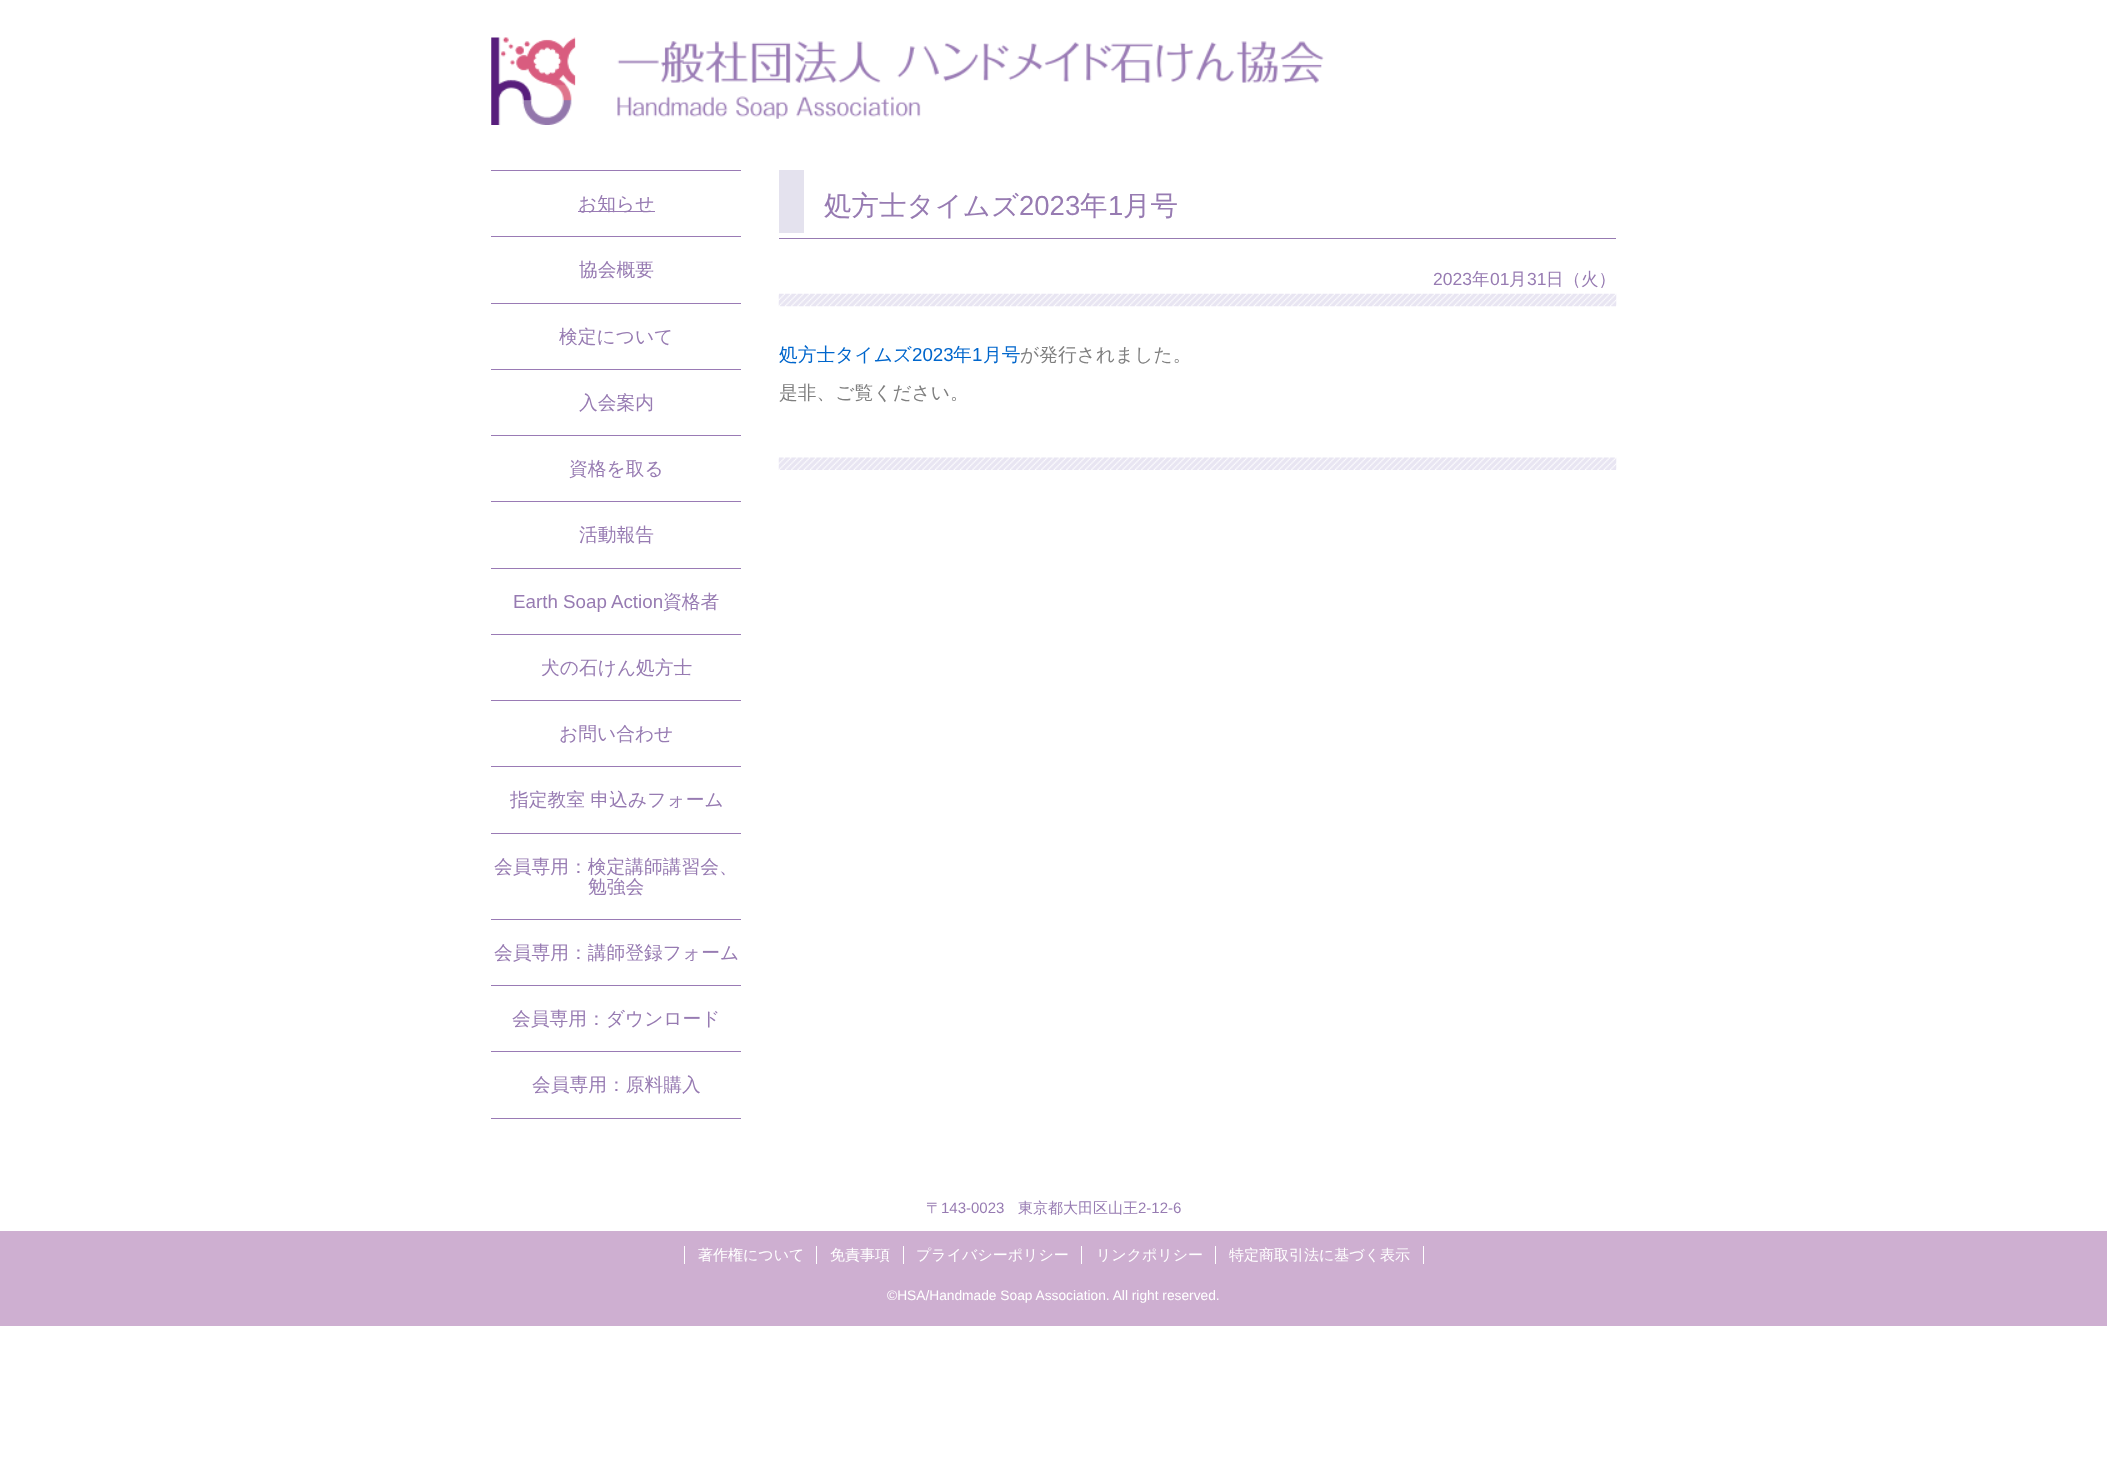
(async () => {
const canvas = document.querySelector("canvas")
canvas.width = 2107
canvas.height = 1483
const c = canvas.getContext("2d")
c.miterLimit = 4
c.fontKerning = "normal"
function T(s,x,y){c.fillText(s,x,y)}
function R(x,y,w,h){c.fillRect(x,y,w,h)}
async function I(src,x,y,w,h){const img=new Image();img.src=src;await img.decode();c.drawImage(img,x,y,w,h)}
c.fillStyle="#fff"
R(0,0,2107,1483)
await I("1.png",491,37,833,88)
c.fillStyle="#9a7bb5"
R(491,170,250,1)
R(491,236,250,1)
R(578,211,77,1)
c.font="500 18.75px WenQuanYi Zen Hei"
c.fillStyle="#977bb2"
T("お知らせ",578,210)
c.fillStyle="#9a7bb5"
R(491,303,250,1)
c.fillStyle="#977bb2"
T("協会概要",579,276)
c.fillStyle="#9a7bb5"
R(491,369,250,1)
c.fillStyle="#977bb2"
T("検定について",559,343)
c.fillStyle="#9a7bb5"
R(491,435,250,1)
c.fillStyle="#977bb2"
T("入会案内",579,409)
c.fillStyle="#9a7bb5"
R(491,501,250,1)
c.fillStyle="#977bb2"
T("資格を取る",569,475)
c.fillStyle="#9a7bb5"
R(491,568,250,1)
c.fillStyle="#977bb2"
T("活動報告",579,541)
c.fillStyle="#9a7bb5"
R(491,634,250,1)
c.font="18.75px Liberation Sans"
c.fillStyle="#977bb2"
T("Earth Soap Action",513,608)
c.font="500 18.75px WenQuanYi Zen Hei"
T("資格者",663,608)
c.fillStyle="#9a7bb5"
R(491,700,250,1)
c.fillStyle="#977bb2"
T("犬の石けん処方士",541,674)
c.fillStyle="#9a7bb5"
R(491,766,250,1)
c.fillStyle="#977bb2"
T("お問い合わせ",559,740)
c.fillStyle="#9a7bb5"
R(491,833,250,1)
c.fillStyle="#977bb2"
T("指定教室 申込みフォーム",510,806)
c.fillStyle="#9a7bb5"
R(491,919,250,1)
c.fillStyle="#977bb2"
T("会員専用：検定講師講習会、",494,873)
T("勉強会",588,893)
c.fillStyle="#9a7bb5"
R(491,985,250,1)
c.fillStyle="#977bb2"
T("会員専用：講師登録フォーム",494,959)
c.fillStyle="#9a7bb5"
R(491,1051,250,1)
c.fillStyle="#977bb2"
T("会員専用：ダウンロード",512,1025)
c.fillStyle="#9a7bb5"
R(491,1118,250,1)
c.fillStyle="#977bb2"
T("会員専用：原料購入",532,1091)
R(779,238,837,1)
c.fillStyle="#e4e2ee"
R(779,170,25,63)
c.font="500 27.5px WenQuanYi Zen Hei"
c.fillStyle="#977bb2"
T("処方士タイムズ",824,215)
c.font="27.5px Liberation Sans"
T("2023",1019,215)
c.font="500 27.5px WenQuanYi Zen Hei"
T("年",1080,215)
c.font="27.5px Liberation Sans"
T("1",1108,215)
c.font="500 27.5px WenQuanYi Zen Hei"
T("月号",1123,215)
await I("2.png",778,293,839,14)
c.font="17.5px Liberation Sans"
T("2023",1433,285)
c.font="500 17.5px WenQuanYi Zen Hei"
T("年",1472,285)
c.font="17.5px Liberation Sans"
T("01",1490,285)
c.font="500 17.5px WenQuanYi Zen Hei"
T("月",1509,285)
c.font="17.5px Liberation Sans"
T("31",1527,285)
c.font="500 17.5px WenQuanYi Zen Hei"
T("日（火）",1546,285)
await I("3.png",778,457,839,13)
c.font="500 18.75px WenQuanYi Zen Hei"
c.fillStyle="#06c"
T("処方士タイムズ",779,361)
c.font="18.75px Liberation Sans"
T("2023",912,361)
c.font="500 18.75px WenQuanYi Zen Hei"
T("年",953,361)
c.font="18.75px Liberation Sans"
T("1",972,361)
c.font="500 18.75px WenQuanYi Zen Hei"
T("月号",983,361)
c.fillStyle="#7f7f7f"
T("が発行されました。",1020,361)
T("是非、ご覧ください。",779,399)
c.font="500 15px WenQuanYi Zen Hei"
c.fillStyle="#977bb2"
T("〒",926,1213)
c.font="15px Liberation Sans"
T("143-0023",941,1213)
c.font="500 15px WenQuanYi Zen Hei"
T("東京都大田区山王",1018,1213)
c.font="15px Liberation Sans"
T("2-12-6",1138,1213)
c.fillStyle="#ceafd1"
R(0,1231,2107,95)
c.fillStyle="#fff"
R(1423,1246,1,18)
R(684,1246,1,18)
c.font="500 15px WenQuanYi Zen Hei"
T("著作権について",698,1260)
R(816,1246,1,18)
T("免責事項",830,1260)
R(903,1246,1,18)
T("プライバシーポリシー",916,1260)
R(1081,1246,1,18)
T("リンクポリシー",1096,1260)
R(1215,1246,1,18)
T("特定商取引法に基づく表示",1229,1260)
c.font="13.75px Liberation Sans"
T("©HSA/Handmade Soap Association. All right reserved.",887,1300)
})()
